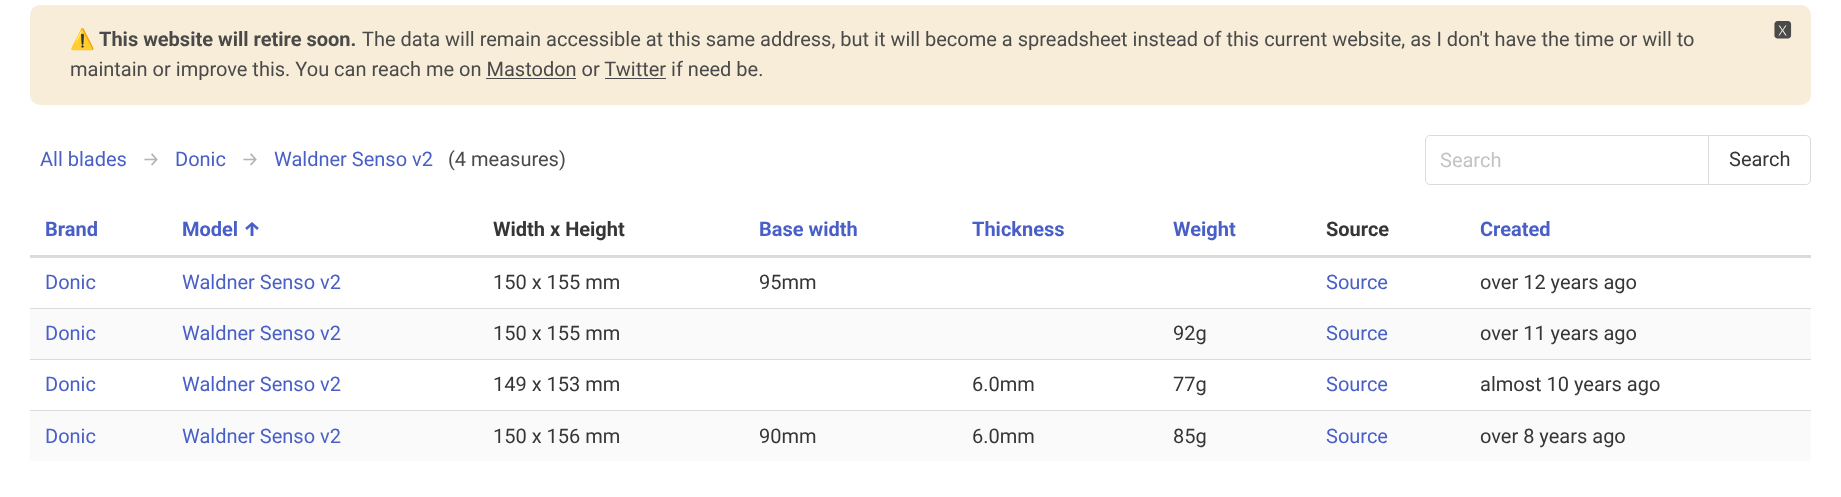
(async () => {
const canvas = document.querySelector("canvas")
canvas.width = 1841
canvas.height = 497
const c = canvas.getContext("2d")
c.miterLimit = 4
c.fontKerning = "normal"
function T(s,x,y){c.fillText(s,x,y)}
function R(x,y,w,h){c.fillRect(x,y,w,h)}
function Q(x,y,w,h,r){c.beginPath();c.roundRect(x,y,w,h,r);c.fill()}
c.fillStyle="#fff"
R(0,0,1841,497)
c.fillStyle="#f8edd8"
Q(30,5,1781,100,10)
c.font="bold 20px Noto Color Emoji"
c.fillStyle="#4a4a4a"
T("⚠️",70,46)
c.font="bold 20px Roboto"
T("This website will retire soon.",99,46)
c.font="20px Roboto"
T("The data will remain accessible at this same address, but it will become a spreadsheet instead of this current website, as I don't have the time or will to",362,46)
c.font="bold 20px FreeSans"
T("🆇",1773,36)
c.font="20px Roboto"
T("maintain or improve this. You can reach me on Mastodon or Twitter if need be.",70,76)
R(486,78,90,1)
R(605,78,61,1)
c.fillStyle="#485fc7"
T("All blades",40,166)
c.font="20px Fira Sans"
c.fillStyle="#b5b5b5"
T("→",142,166)
c.font="20px Roboto"
c.fillStyle="#485fc7"
T("Donic",175,166)
c.font="20px Fira Sans"
c.fillStyle="#b5b5b5"
T("→",241,166)
c.font="20px Roboto"
c.fillStyle="#485fc7"
T("Waldner Senso v2",274,166)
c.fillStyle="#4a4a4a"
T("(4 measures)",448,166)
c.beginPath()
c.roundRect(1425.5,135.5,283,49,[4.5,0,0,4.5])
c.strokeStyle="#dbdbdb"
c.stroke()
c.fillStyle="#c3c3c3"
T("Search",1440,167)
c.fillStyle="#fff"
c.beginPath()
c.roundRect(1708.5,135.5,102,49,[0,4.5,4.5,0])
c.fill()
c.stroke()
c.fillStyle="#363636"
T("Search",1729,166)
c.font="bold 20px Roboto"
c.fillStyle="#485fc7"
T("Brand",45,236)
T("Model",182,236)
c.font="bold 20px Fira Sans"
T("↑",243,236)
c.font="bold 20px Roboto"
c.fillStyle="#363636"
T("Width x Height",493,236)
c.fillStyle="#485fc7"
T("Base width",759,236)
T("Thickness",972,236)
T("Weight",1173,236)
c.fillStyle="#363636"
T("Source",1326,236)
c.fillStyle="#dbdbdb"
R(30,255,1781,3)
c.fillStyle="#485fc7"
T("Created",1480,236)
c.font="20px Roboto"
T("Donic",45,289)
T("Waldner Senso v2",182,289)
c.fillStyle="#363636"
T("150 x 155 mm",493,289)
T("95mm",759,289)
c.fillStyle="#485fc7"
T("Source",1326,289)
c.fillStyle="#dbdbdb"
R(30,308,1781,1)
c.fillStyle="#363636"
T("over 12 years ago",1480,289)
c.fillStyle="#fafafa"
R(30,309,1781,50)
c.fillStyle="#485fc7"
T("Donic",45,340)
T("Waldner Senso v2",182,340)
c.fillStyle="#363636"
T("150 x 155 mm",493,340)
T("92g",1173,340)
c.fillStyle="#485fc7"
T("Source",1326,340)
c.fillStyle="#dbdbdb"
R(30,359,1781,1)
c.fillStyle="#363636"
T("over 11 years ago",1480,340)
c.fillStyle="#485fc7"
T("Donic",45,391)
T("Waldner Senso v2",182,391)
c.fillStyle="#363636"
T("149 x 153 mm",493,391)
T("6.0mm",972,391)
T("77g",1173,391)
c.fillStyle="#485fc7"
T("Source",1326,391)
c.fillStyle="#dbdbdb"
R(30,410,1781,1)
c.fillStyle="#363636"
T("almost 10 years ago",1480,391)
c.fillStyle="#fafafa"
R(30,411,1781,50)
c.fillStyle="#485fc7"
T("Donic",45,443)
T("Waldner Senso v2",182,443)
c.fillStyle="#363636"
T("150 x 156 mm",493,443)
T("90mm",759,443)
T("6.0mm",972,443)
T("85g",1173,443)
c.fillStyle="#485fc7"
T("Source",1326,443)
c.fillStyle="#363636"
T("over 8 years ago",1480,443)
})()
